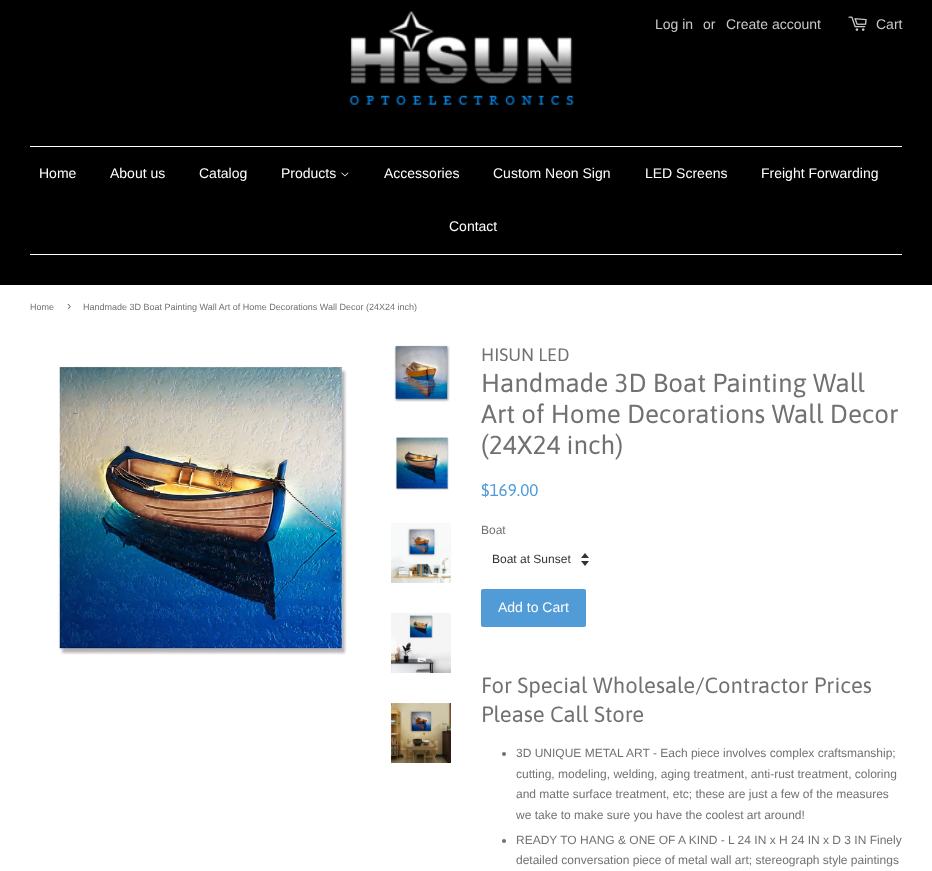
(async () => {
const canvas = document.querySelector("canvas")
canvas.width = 932
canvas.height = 871
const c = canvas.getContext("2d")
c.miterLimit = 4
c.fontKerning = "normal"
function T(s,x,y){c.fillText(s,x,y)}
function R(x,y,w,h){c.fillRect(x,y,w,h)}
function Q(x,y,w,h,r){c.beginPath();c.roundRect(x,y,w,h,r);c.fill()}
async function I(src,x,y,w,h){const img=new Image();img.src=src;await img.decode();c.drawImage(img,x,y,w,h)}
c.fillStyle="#fff"
R(0,0,932,871)
c.fillStyle="#000"
R(0,0,932,285)
c.font="14px Liberation Sans"
c.fillStyle="#c9c9c9"
T("Log in",655,29)
T("or",703,29)
T("Create account",726,29)
await I("1.png",848,16,19,15)
T("Cart",876,29)
await I("2.png",349,11,225,94)
c.fillStyle="#fff"
R(30,146,872,1)
R(30,254,872,1)
T("Home",39,178)
T("About us",110,178)
T("Catalog",199,178)
T("Products",281,178)
await I("3.png",341,172,8,5)
T("Accessories",384,178)
T("Custom Neon Sign",493,178)
T("LED Screens",645,178)
T("Freight Forwarding",761,178)
T("Contact",449,231)
c.font="9px Liberation Sans"
c.fillStyle="#727171"
T("Home",30,310)
c.font="13px Liberation Sans"
T("›",67,310)
c.font="9px Liberation Sans"
T("Handmade 3D Boat Painting Wall Art of Home Decorations Wall Decor (24X24 inch)",83,310)
await I("4.png",57,366,290,289)
await I("5.png",394,345,56,57)
await I("6.png",395,437,54,53)
await I("7.png",391,523,60,60)
await I("8.png",391,613,60,60)
await I("9.png",391,703,60,60)
c.font="18px Asap"
T("HISUN LED",481,361)
c.font="26px Asap"
T("Handmade 3D Boat Painting Wall",481,392)
T("Art of Home Decorations Wall Decor",481,423)
T("(24X24 inch)",481,454)
c.font="17px Asap"
c.fillStyle="#519bd7"
T("$169.00",481,496)
c.font="12px Liberation Sans"
c.fillStyle="#727171"
T("Boat",481,534)
await I("10.png",581,553,8,13)
c.fillStyle="#333"
T("Boat at Sunset",492,563)
c.fillStyle="#519bd7"
Q(481,589,105,38,2)
c.font="14px Liberation Sans"
c.fillStyle="#fff"
T("Add to Cart",498,612)
c.font="22px Asap"
c.fillStyle="#727171"
T("For Special Wholesale/Contractor Prices",481,693)
T("Please Call Store",481,722)
c.beginPath()
c.arc(504,754,2,0,7)
c.fill()
c.font="12px Liberation Sans"
T("3D UNIQUE METAL ART - Each piece involves complex craftsmanship;",516,757)
T("cutting, modeling, welding, aging treatment, anti-rust treatment, coloring",516,778)
T("and matte surface treatment, etc; these are just a few of the measures",516,798)
T("we take to make sure you have the coolest art around!",516,819)
c.beginPath()
c.arc(504,841,2,0,7)
c.fill()
T("READY TO HANG & ONE OF A KIND - L 24 IN x H 24 IN x D 3 IN Finely",516,844)
T("detailed conversation piece of metal wall art; stereograph style paintings",516,864)
})()
